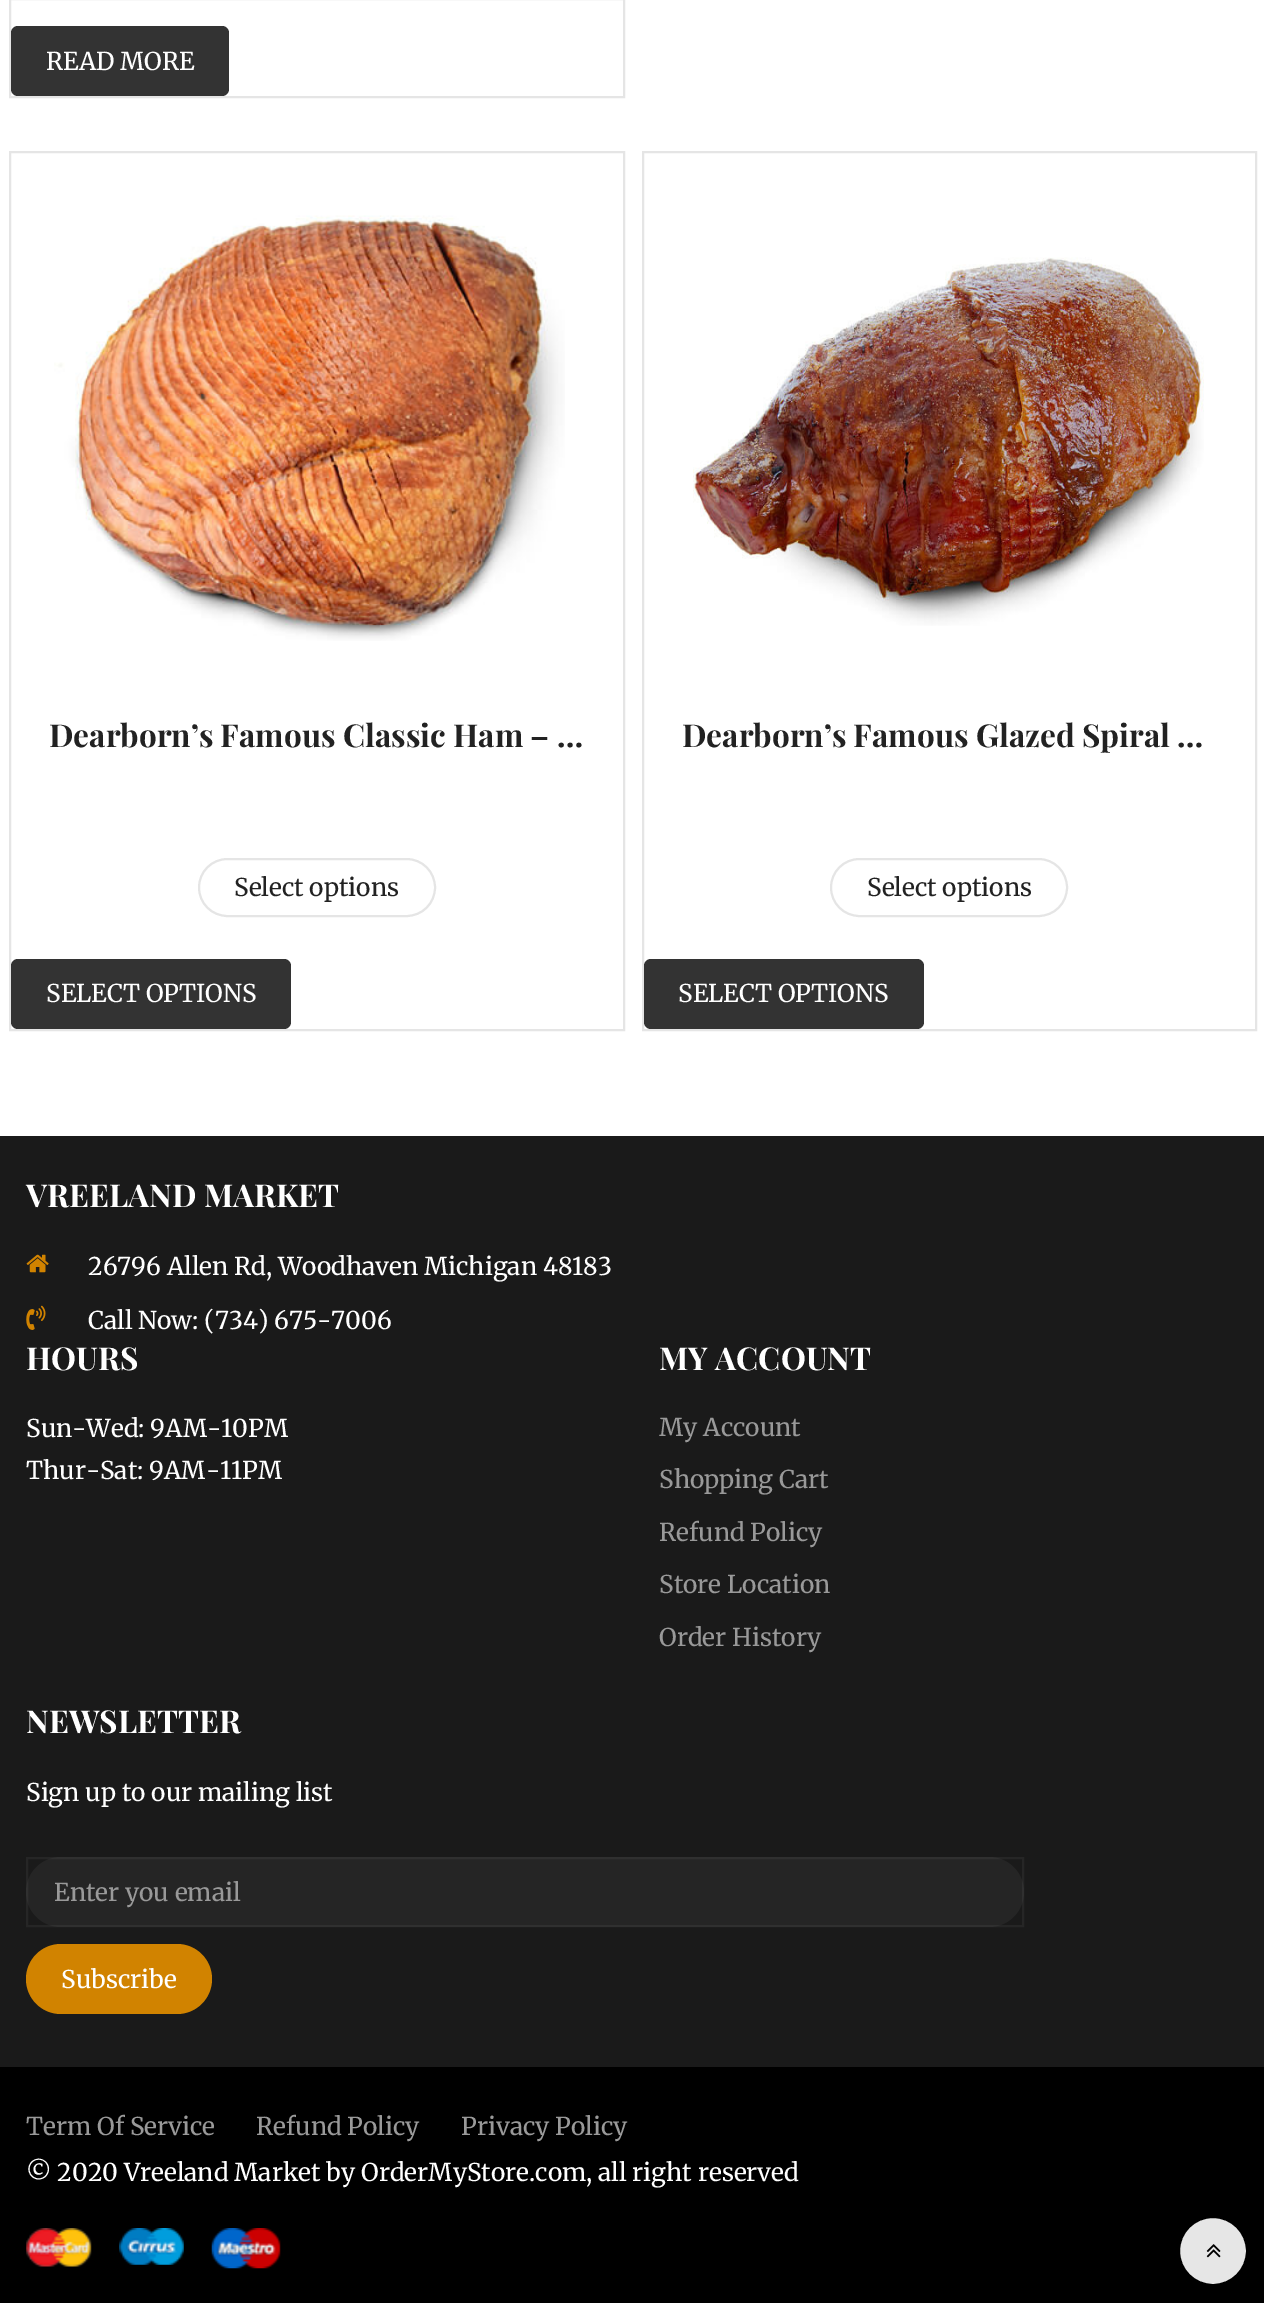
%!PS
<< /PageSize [1264 2303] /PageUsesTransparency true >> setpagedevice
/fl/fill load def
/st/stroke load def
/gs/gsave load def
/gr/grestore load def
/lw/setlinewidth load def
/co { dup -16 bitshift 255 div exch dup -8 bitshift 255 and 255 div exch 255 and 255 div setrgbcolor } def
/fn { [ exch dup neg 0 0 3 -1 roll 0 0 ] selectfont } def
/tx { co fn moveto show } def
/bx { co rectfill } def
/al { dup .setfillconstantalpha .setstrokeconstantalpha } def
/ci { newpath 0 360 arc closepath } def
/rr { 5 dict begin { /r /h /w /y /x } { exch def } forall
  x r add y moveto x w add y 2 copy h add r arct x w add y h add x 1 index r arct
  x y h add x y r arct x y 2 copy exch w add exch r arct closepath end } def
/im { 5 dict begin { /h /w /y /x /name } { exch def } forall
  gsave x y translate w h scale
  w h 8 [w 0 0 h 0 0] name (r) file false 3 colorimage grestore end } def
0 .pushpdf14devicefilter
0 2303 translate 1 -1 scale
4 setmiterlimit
0 0 1264 2303 16#FFFFFF bx
16#E5E5E5 co
2 lw
10 -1 614 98 rectstroke
16#333333 co
11 26 218 70 7 rr fl
16#E5E5E5 co
10 152 614 878 rectstroke
(media/1.raw) 54 215 511 426 im
199 859 236 57 28.5 rr st
16#333333 co
11 959 280 70 7 rr fl
16#E5E5E5 co
643 152 613 878 rectstroke
(media/2.raw) 693 257 511 369 im
831 859 236 57 28.5 rr st
16#333333 co
644 959 280 70 7 rr fl
0 1136 1264 931 16#1A1A1A bx
(media/3.raw) 26 1254 23 19 im
(media/4.raw) 26 1305 20 25 im
16#252525 co
26 1857 998 70 35 rr fl
0.05 al
16#FFFFFF co
27 1858 996 68 rectstroke
1 al
16#D18300 co
26 1944 186 70 35 rr fl
0 2067 1264 236 16#000000 bx
(media/5.raw) 26 2228 66 39 im
(media/6.raw) 119 2228 65 37 im
(media/7.raw) 211 2228 70 41 im
16#E6E6E6 co
1213 2251 34 ci gs fl gr
16#000000 co
st
(media/8.raw) 1206 2244 15 14 im
(READ MORE) 46 70 /Merriweather-Regular 24.5 16#FFFFFF tx
(Dearborn’s Famous Classic Ham – …) 49 747 /PlayfairDisplay-Bold 31.5 16#222222 tx
(Select options) 234 896 /Merriweather-Regular 24.5 16#222222 tx
(SELECT OPTIONS) 46 1002 /Merriweather-Regular 24.5 16#FFFFFF tx
gs
683 719 533 44 rectclip
(Dearborn’s Famous Glazed Spiral …) 682 747 /PlayfairDisplay-Bold 31.5 16#222222 tx
gr
(Select options) 867 896 /Merriweather-Regular 24.5 16#222222 tx
(SELECT OPTIONS) 678 1002 /Merriweather-Regular 24.5 16#FFFFFF tx
(VREELAND MARKET) 26 1207 /PlayfairDisplay-Bold 31.5 16#FFFFFF tx
(26796 Allen Rd, Woodhaven Michigan 48183) 88 1275 /Merriweather-Regular 24.5 16#FFFFFF tx
(Call Now: \(734\) 675-7006) 88 1329 /Merriweather-Regular 24.5 16#FFFFFF tx
(HOURS) 26 1370 /PlayfairDisplay-Bold 31.5 16#FFFFFF tx
(Sun-Wed: 9AM-10PM) 26 1437 /Merriweather-Regular 24.5 16#FFFFFF tx
(Thur-Sat: 9AM-11PM) 26 1479 /Merriweather-Regular 24.5 16#FFFFFF tx
(MY ACCOUNT) 659 1370 /PlayfairDisplay-Bold 31.5 16#FFFFFF tx
(My Account) 659 1436 /Merriweather-Regular 24.5 16#999999 tx
(Shopping Cart) 659 1488 /Merriweather-Regular 24.5 16#999999 tx
(Refund Policy) 659 1541 /Merriweather-Regular 24.5 16#999999 tx
(Store Location) 659 1593 /Merriweather-Regular 24.5 16#999999 tx
(Order History) 659 1646 /Merriweather-Regular 24.5 16#999999 tx
(NEWSLETTER) 26 1733 /PlayfairDisplay-Bold 31.5 16#FFFFFF tx
(Sign up to our mailing list) 26 1801 /Merriweather-Regular 24.5 16#FFFFFF tx
(Enter you email) 54 1901 /Merriweather-Regular 24.5 16#999999 tx
(Subscribe) 61 1988 /Merriweather-Regular 24.5 16#FFFFFF tx
(Term Of Service) 26 2135 /Merriweather-Regular 24.5 16#999999 tx
(Refund Policy) 256 2135 /Merriweather-Regular 24.5 16#999999 tx
(Privacy Policy) 461 2135 /Merriweather-Regular 24.5 16#999999 tx
(© 2020 Vreeland Market by OrderMyStore.com, all right reserved) 26 2181 /Merriweather-Regular 24.5 16#FFFFFF tx
.poppdf14devicefilter showpage
